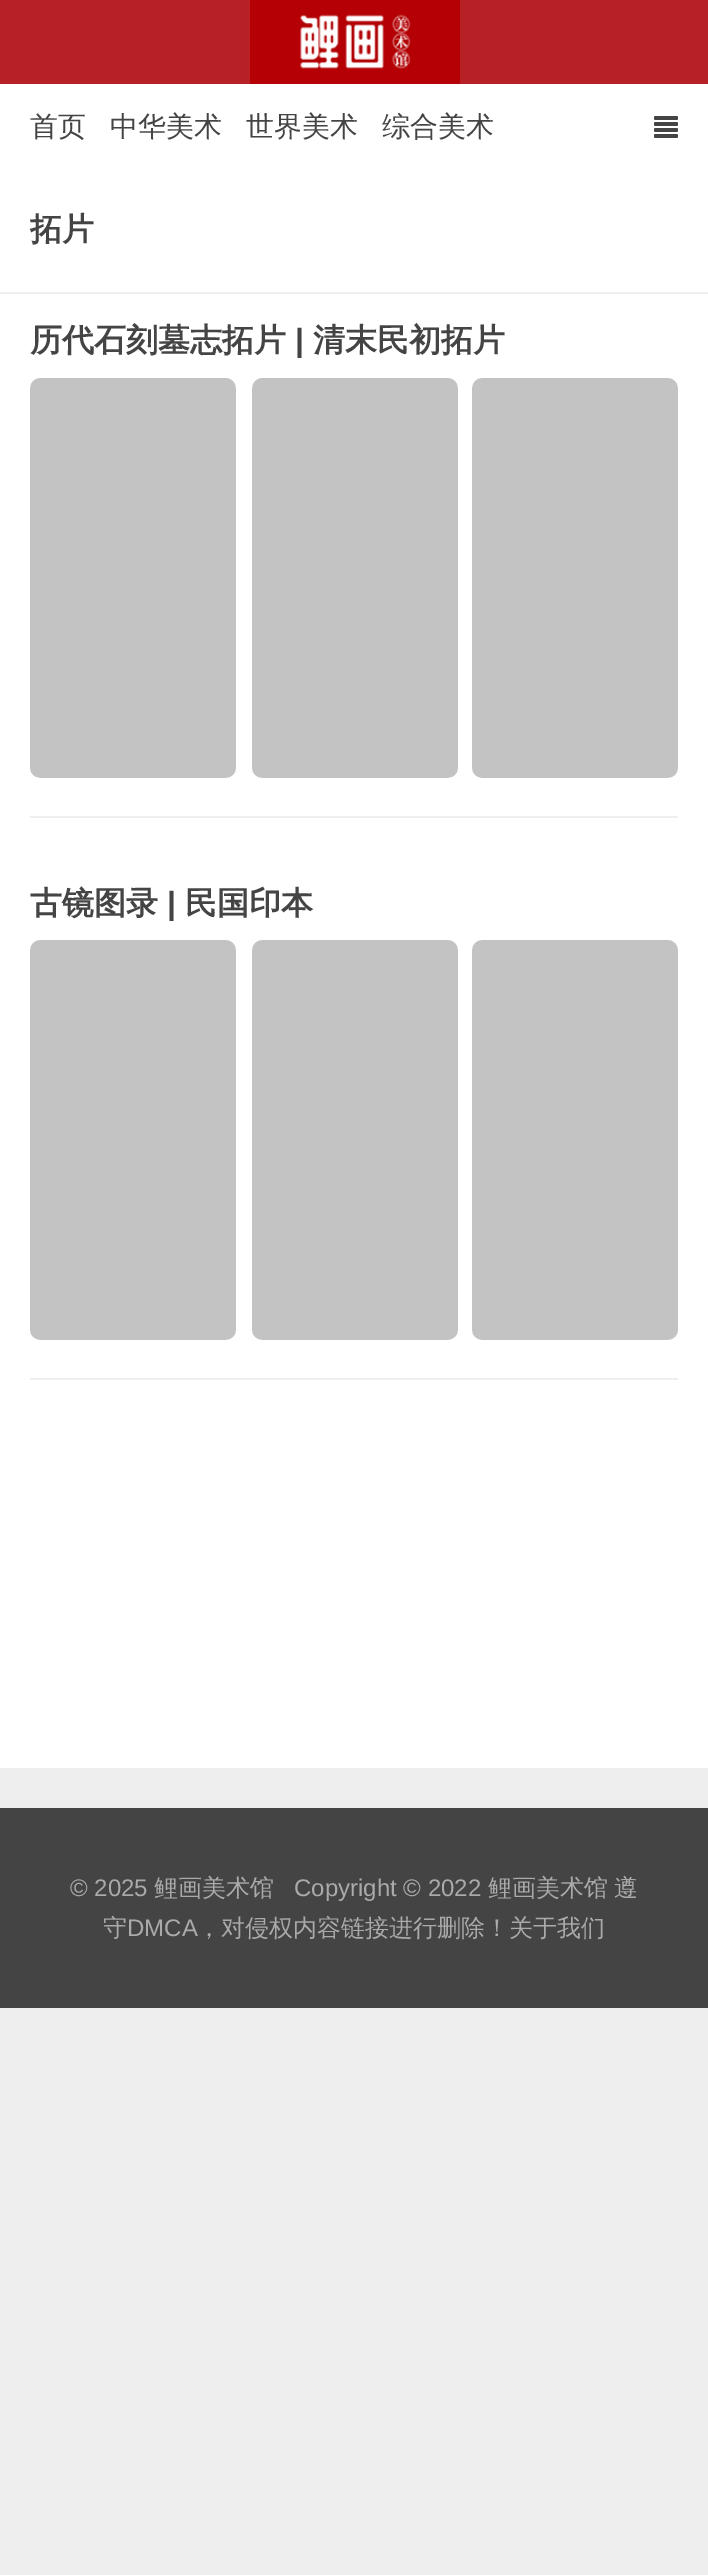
%!PS
<< /PageSize [708 2575] >> setpagedevice
/co { dup -16 bitshift 255 div exch dup -8 bitshift 255 and 255 div exch 255 and 255 div setrgbcolor } def
/fn { [ exch dup neg 0 0 3 -1 roll 0 0 ] selectfont } def
/tx { co fn moveto show } def
/bx { co rectfill } def
/im { 5 dict begin { /h /w /y /x /name } { exch def } forall
  gsave x y translate w h scale
  w h 8 [w 0 0 h 0 0] name (r) file false 3 colorimage grestore end } def
0 2575 translate 1 -1 scale
4 setmiterlimit
0 0 708 2575 16#EEEEEE bx
0 0 708 84 16#B72025 bx
(media/1.raw) 250 0 210 84 im
0 84 708 1684 16#FFFFFF bx
(media/2.raw) 654 116 24 22 im
0 292 708 2 16#EEEEEE bx
30 816 648 2 16#EEEEEE bx
(media/3.raw) 30 378 206 400 im
(media/4.raw) 252 378 206 400 im
(media/3.raw) 472 378 206 400 im
30 1378 648 2 16#EEEEEE bx
(media/3.raw) 30 940 206 400 im
(media/4.raw) 252 940 206 400 im
(media/3.raw) 472 940 206 400 im
0 1808 708 200 16#444444 bx
(首页) 30 136 /WenQuanYiZenHei-Medium 28 16#444444 tx
(中华美术) 110 136 /WenQuanYiZenHei-Medium 28 16#444444 tx
(世界美术) 246 136 /WenQuanYiZenHei-Medium 28 16#444444 tx
(综合美术) 382 136 /WenQuanYiZenHei-Medium 28 16#444444 tx
(拓片) 30 240 /WenQuanYiZenHei-Bold 32 16#444444 tx
(历代石刻墓志拓片) 30 351 /WenQuanYiZenHei-Bold 32 16#444444 tx
(|) 295 351 /LiberationSans-Bold 32 16#444444 tx
(清末民初拓片) 313 351 /WenQuanYiZenHei-Bold 32 16#444444 tx
(古镜图录) 30 914 /WenQuanYiZenHei-Bold 32 16#444444 tx
(|) 167 914 /LiberationSans-Bold 32 16#444444 tx
(民国印本) 185 914 /WenQuanYiZenHei-Bold 32 16#444444 tx
(© 2025) 70 1896 /LiberationSans-Regular 24 16#AAAAAA tx
(鲤画美术馆) 154 1896 /WenQuanYiZenHei-Medium 24 16#AAAAAA tx
(Copyright © 2022) 294 1896 /LiberationSans-Regular 24 16#AAAAAA tx
(鲤画美术馆) 488 1896 /WenQuanYiZenHei-Medium 24 16#AAAAAA tx
(遵) 614 1896 /WenQuanYiZenHei-Medium 24 16#AAAAAA tx
(守) 103 1936 /WenQuanYiZenHei-Medium 24 16#AAAAAA tx
(DMCA) 127 1936 /LiberationSans-Regular 24 16#AAAAAA tx
(，对侵权内容链接进行删除！关于我们) 197 1936 /WenQuanYiZenHei-Medium 24 16#AAAAAA tx
showpage
